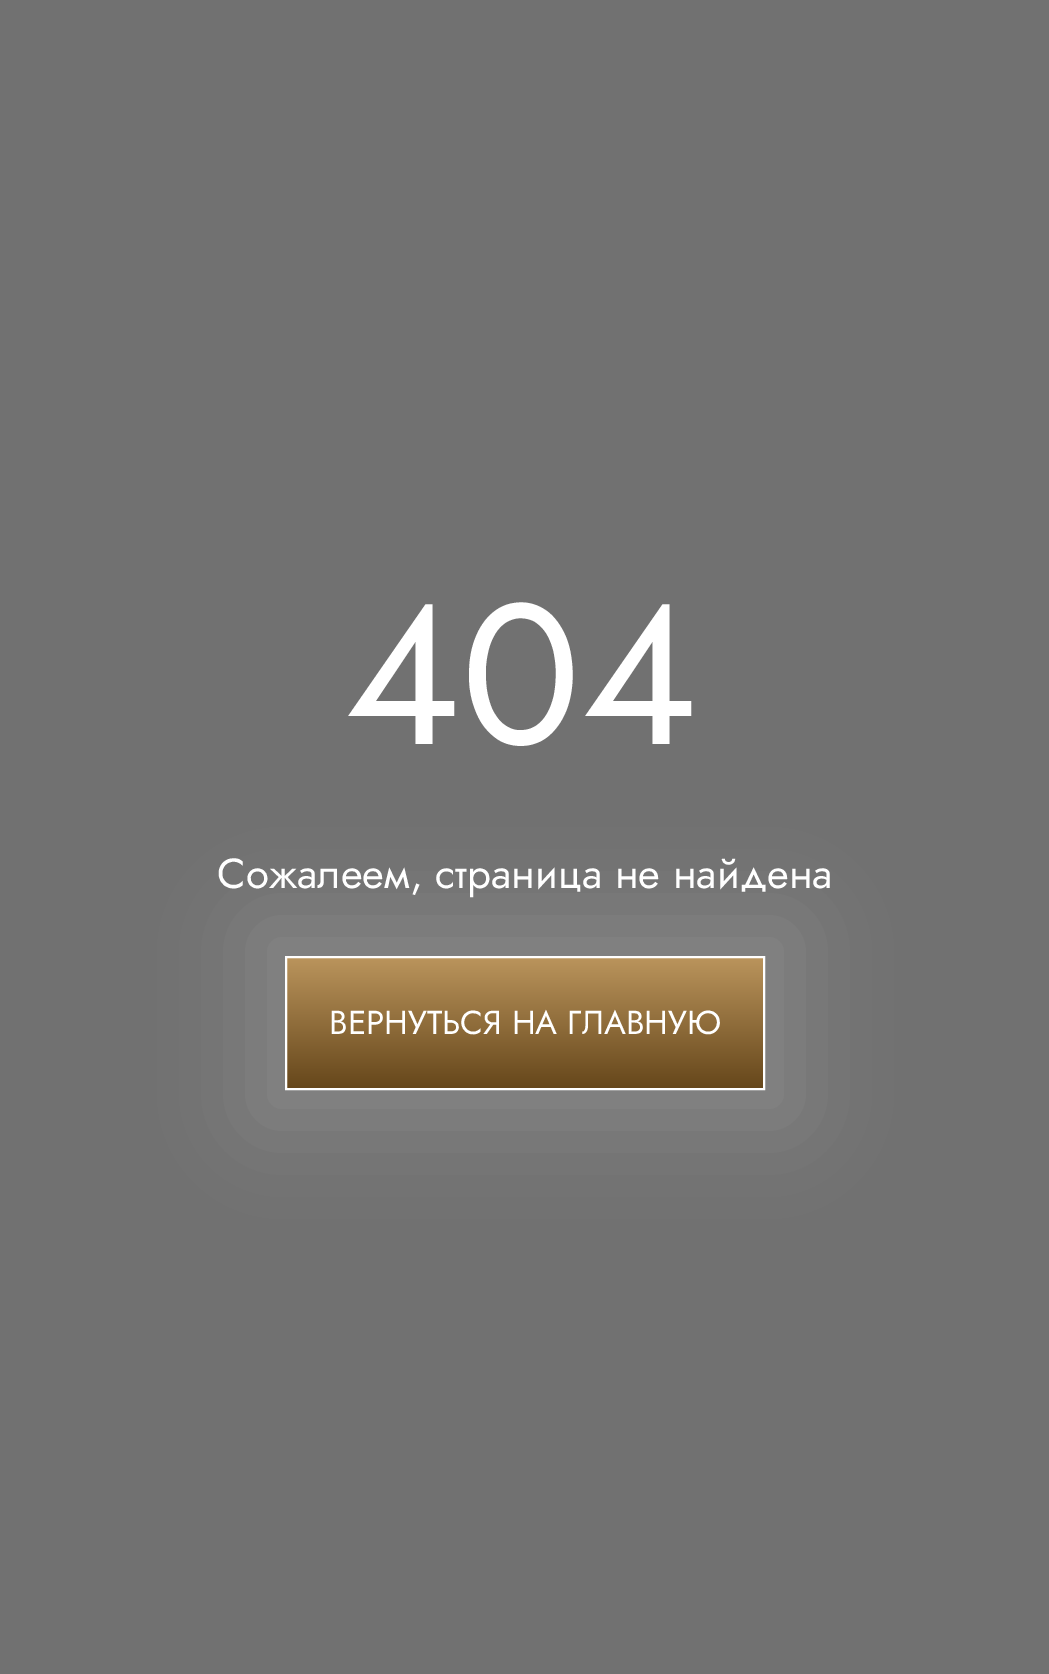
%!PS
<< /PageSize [1049 1674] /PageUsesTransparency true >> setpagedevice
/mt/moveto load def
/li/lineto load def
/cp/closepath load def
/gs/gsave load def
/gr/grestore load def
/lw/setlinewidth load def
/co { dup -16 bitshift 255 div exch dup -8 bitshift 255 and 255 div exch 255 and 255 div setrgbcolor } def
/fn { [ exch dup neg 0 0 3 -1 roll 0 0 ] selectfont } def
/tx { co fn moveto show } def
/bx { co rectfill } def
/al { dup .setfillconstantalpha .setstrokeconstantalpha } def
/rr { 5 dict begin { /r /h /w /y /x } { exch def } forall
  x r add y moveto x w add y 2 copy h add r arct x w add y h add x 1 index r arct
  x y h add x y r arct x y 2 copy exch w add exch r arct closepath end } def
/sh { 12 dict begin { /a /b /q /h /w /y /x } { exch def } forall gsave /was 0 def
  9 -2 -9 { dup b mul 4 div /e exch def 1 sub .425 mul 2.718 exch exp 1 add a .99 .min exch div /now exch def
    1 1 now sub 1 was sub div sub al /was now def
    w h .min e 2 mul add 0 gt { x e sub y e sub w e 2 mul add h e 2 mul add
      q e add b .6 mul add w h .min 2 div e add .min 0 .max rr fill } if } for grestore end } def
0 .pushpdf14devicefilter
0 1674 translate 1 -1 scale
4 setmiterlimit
0 0 1049 1674 16#717171 bx
16#FFFFFF co
256 926 539 194 0 44 .14 sh
gs 287 958 mt 763 958 li 763 1088 li 287 1088 li cp clip newpath
<< /ShadingType 2 /ColorSpace /DeviceRGB /Coords [525 957 525 1089] /Extend [true true] /Function << /FunctionType 2 /Domain [0 1] /C0 [.733 .584 .361] /C1 [.396 .278 .102] /N 1 >> >> shfill gr
2 lw
286 957 478 132 rectstroke
(404) 344 744 /Jost-Regular 200 16#FFFFFF tx
(Сожалеем, страница не найдена) 217 888 /Jost-Regular 42 16#FFFFFF tx
(ВЕРНУТЬСЯ НА ГЛАВНУЮ) 329 1034 /Jost-Regular 33.25 16#FFFFFF tx
.poppdf14devicefilter showpage
